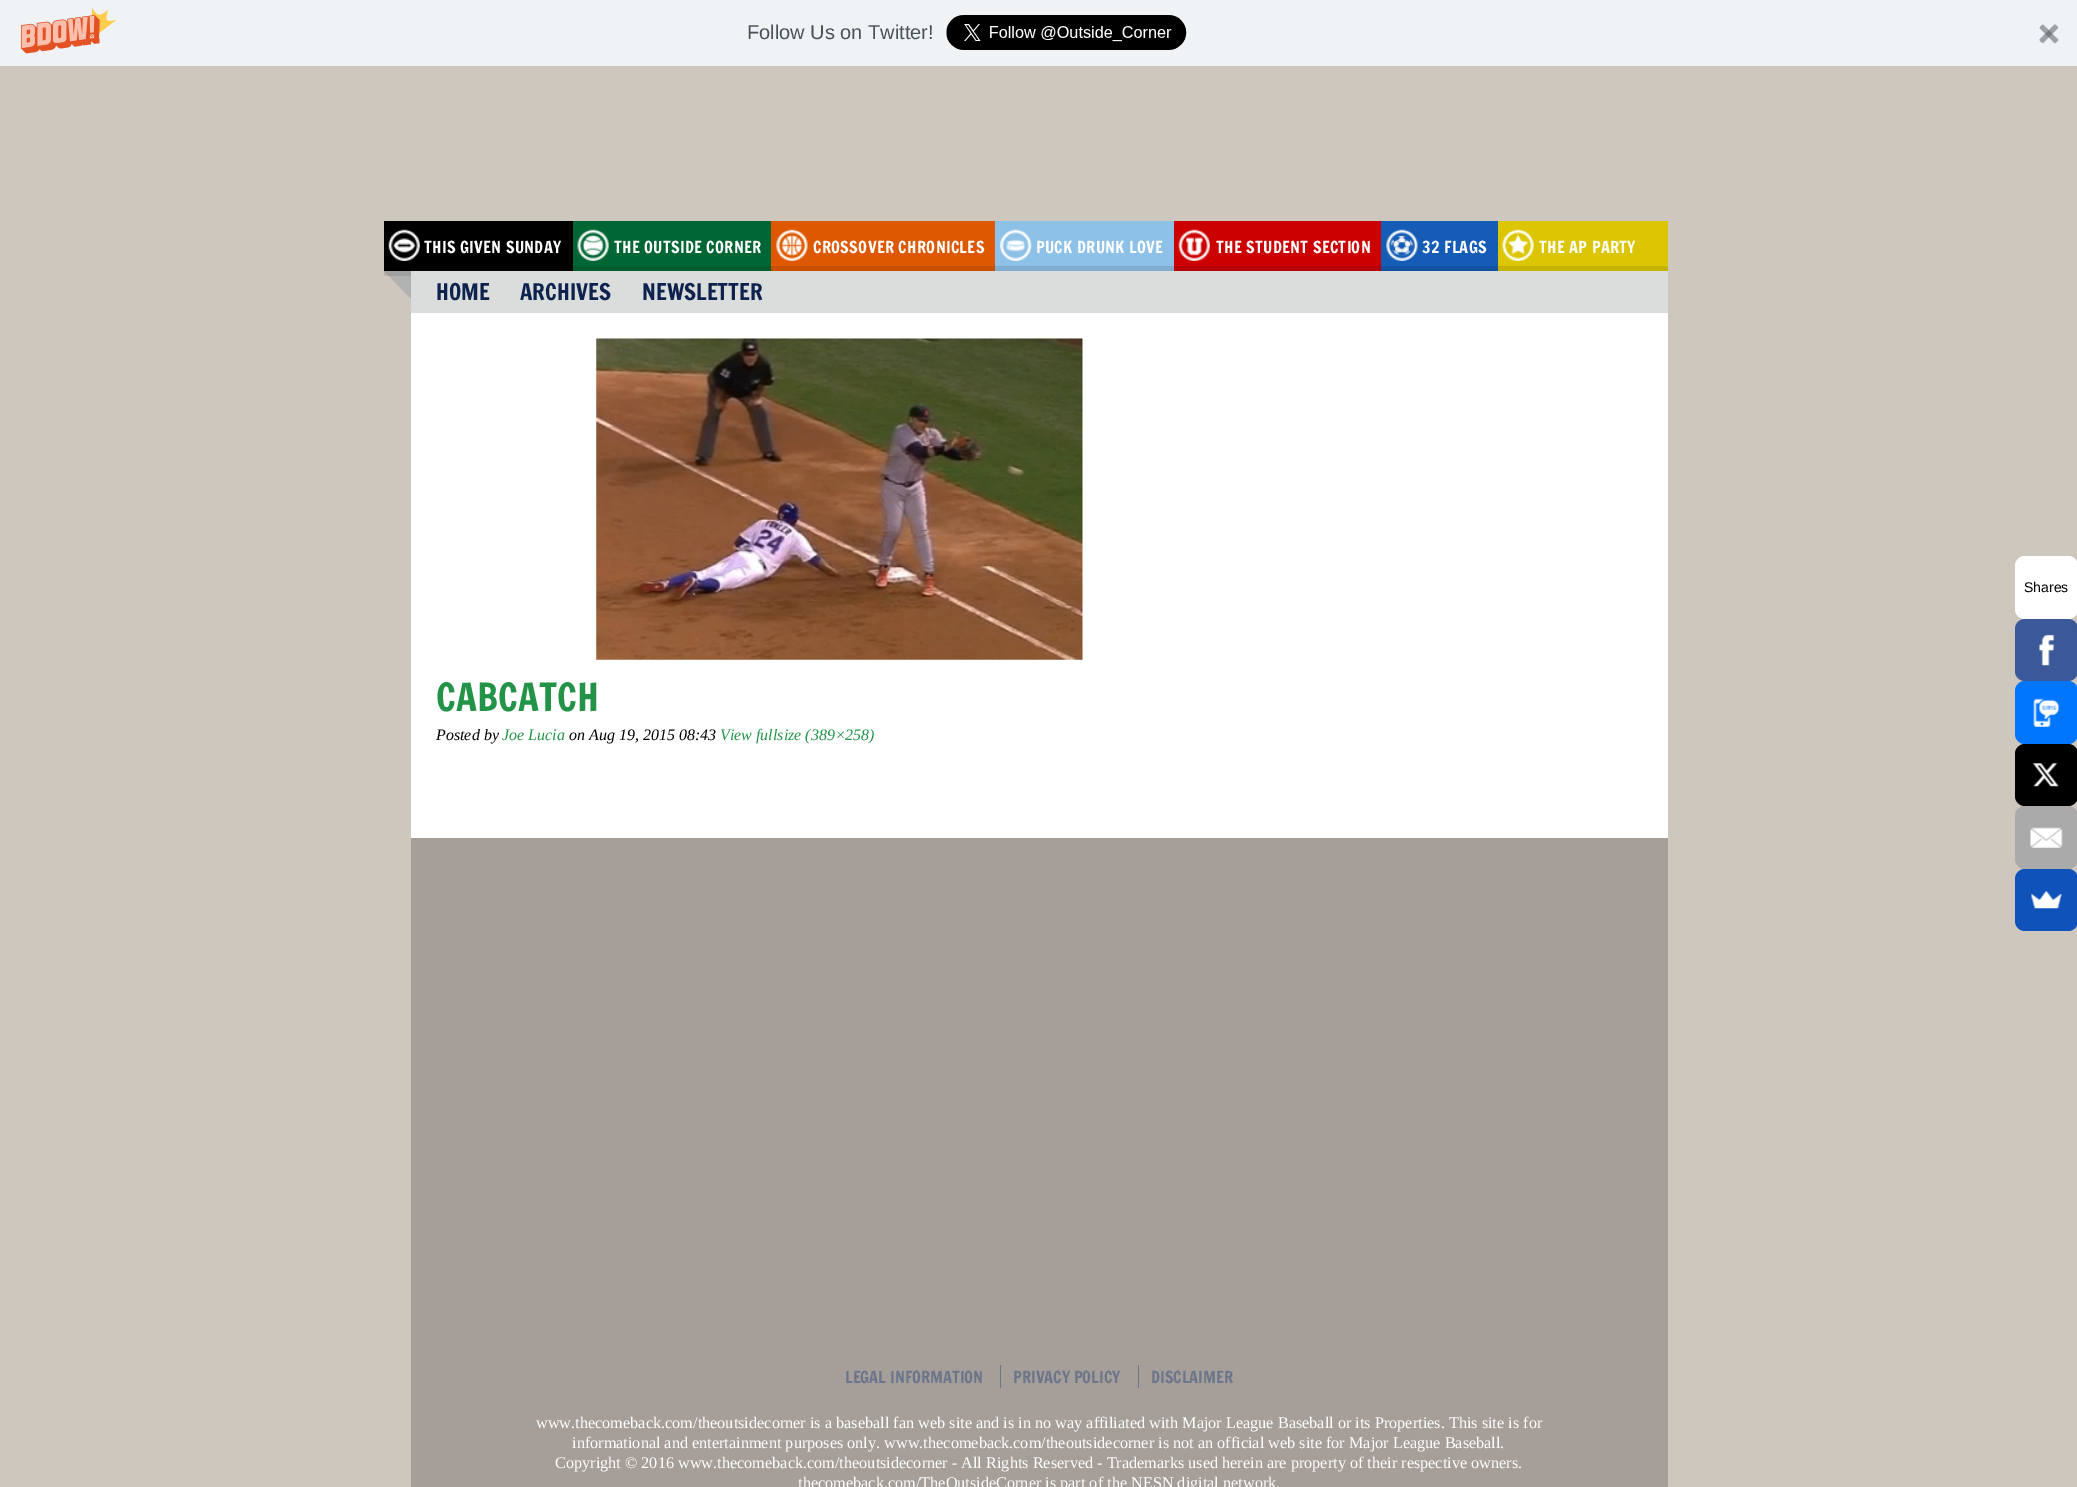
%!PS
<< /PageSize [2077 1487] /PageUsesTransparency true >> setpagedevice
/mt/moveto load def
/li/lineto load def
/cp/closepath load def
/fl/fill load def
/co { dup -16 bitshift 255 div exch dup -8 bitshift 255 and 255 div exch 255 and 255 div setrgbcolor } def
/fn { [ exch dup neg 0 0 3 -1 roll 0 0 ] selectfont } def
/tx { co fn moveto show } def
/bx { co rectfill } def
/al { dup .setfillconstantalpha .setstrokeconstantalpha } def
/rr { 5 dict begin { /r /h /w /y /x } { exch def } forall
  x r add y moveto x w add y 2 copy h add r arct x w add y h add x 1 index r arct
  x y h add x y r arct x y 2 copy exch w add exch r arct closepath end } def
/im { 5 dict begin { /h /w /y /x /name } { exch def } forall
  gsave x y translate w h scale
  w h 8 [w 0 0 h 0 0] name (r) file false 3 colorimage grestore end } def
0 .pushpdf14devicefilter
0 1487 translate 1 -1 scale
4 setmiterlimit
0 0 2077 1487 16#CEC7BE bx
0 0 2077 66 16#F0F3F5 bx
(media/1.raw) 20 7 97 47 im
(media/2.raw) 946 15 241 35 im
(media/3.raw) 2039 24 20 20 im
411 313 1257 525 16#FFFFFF bx
1498 221 170 50 16#DCC604 bx
384 221 189 50 16#000000 bx
(media/4.raw) 388 229 32 32 im
573 221 198 50 16#006633 bx
(media/5.raw) 577 229 32 32 im
771 221 224 50 16#DD5800 bx
(media/6.raw) 776 229 32 32 im
995 221 179 50 16#8EC1E8 bx
(media/7.raw) 1000 229 32 32 im
1174 221 207 50 16#CC0000 bx
(media/8.raw) 1178 229 32 32 im
1381 221 117 50 16#145CB6 bx
(media/9.raw) 1386 229 32 32 im
(media/10.raw) 1502 229 32 32 im
16#B1B1B1 co
384 271 mt 411 271 li 397.5 285 li cp fl
411 271 mt 411 299 li 397.5 285 li cp fl
0.1 al
384 266 1284 10 16#000000 bx
1 al
411 271 1257 42 16#DBDDDD bx
(media/11.raw) 596 337 487 323 im
411 838 1257 649 16#A69F99 bx
1000 1365 1 23 16#6B758B bx
1138 1365 1 23 16#6B758B bx
16#FFFFFF co
2015 556 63 63 10 rr fl
16#3B5998 co
2015 619 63 62 10 rr fl
(media/12.raw) 2039 634 16 32 im
16#0076FF co
2015 681 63 63 10 rr fl
(media/13.raw) 2033 698 27 29 im
16#000000 co
2015 744 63 62 10 rr fl
(media/14.raw) 2032 763 27 24 im
16#AAAAAA co
2015 806 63 63 10 rr fl
(media/15.raw) 2030 827 33 21 im
16#0F52BA co
2015 869 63 62 10 rr fl
(media/16.raw) 2031 891 31 18 im
(Follow Us on Twitter!) 747 39 /LiberationSans-Regular 20 16#495259 tx
/FrancoisOne-Regular 16.25 fn
16#FEFEFE co
424 253 mt .3 0 (THIS GIVEN SUNDAY) ashow
614 253 mt .3 0 (THE OUTSIDE CORNER) ashow
813 253 mt .3 0 (CROSSOVER CHRONICLES) ashow
1036 253 mt .3 0 (PUCK DRUNK LOVE) ashow
1216 253 mt .3 0 (THE STUDENT SECTION) ashow
1422 253 mt .3 0 (32 FLAGS) ashow
1539 253 mt .3 0 (THE AP PARTY) ashow
(HOME) 436 300 /FrancoisOne-Regular 22.5 16#0D234D tx
(ARCHIVES) 520 300 /FrancoisOne-Regular 22.5 16#0D234D tx
(NEWSLETTER) 642 300 /FrancoisOne-Regular 22.5 16#0D234D tx
(CABCATCH) 436 711 /FrancoisOne-Regular 38 16#229347 tx
(Posted by) 436 740 /LiberationSerif-Italic 16 16#000000 tx
(Joe Lucia) 502 740 /LiberationSerif-Italic 16 16#229347 tx
(on Aug 19, 2015 08:43) 569 740 /LiberationSerif-Italic 16 16#000000 tx
(View fullsize \(389×258\)) 720 740 /LiberationSerif-Italic 16 16#229347 tx
(LEGAL INFORMATION) 845 1383 /FrancoisOne-Regular 16.25 16#6B758B tx
(PRIVACY POLICY) 1013 1383 /FrancoisOne-Regular 16.25 16#6B758B tx
(DISCLAIMER) 1151 1383 /FrancoisOne-Regular 16.25 16#6B758B tx
(www.thecomeback.com/theoutsidecorner is a baseball fan web site and is in no way affiliated with Major League Baseball or its Properties. This site is for) 536 1428 /LiberationSerif-Regular 16.25 16#FEFEFE tx
(informational and entertainment purposes only. www.thecomeback.com/theoutsidecorner is not an official web site for Major League Baseball.) 572 1448 /LiberationSerif-Regular 16.25 16#FEFEFE tx
(Copyright © 2016 www.thecomeback.com/theoutsidecorner - All Rights Reserved - Trademarks used herein are property of their respective owners.) 555 1468 /LiberationSerif-Regular 16.25 16#FEFEFE tx
(thecomeback.com/TheOutsideCorner is part of the NESN digital network.) 798 1488 /LiberationSerif-Regular 16.25 16#FEFEFE tx
(Shares) 2024 592 /LiberationSans-Regular 14 16#000000 tx
.poppdf14devicefilter showpage
